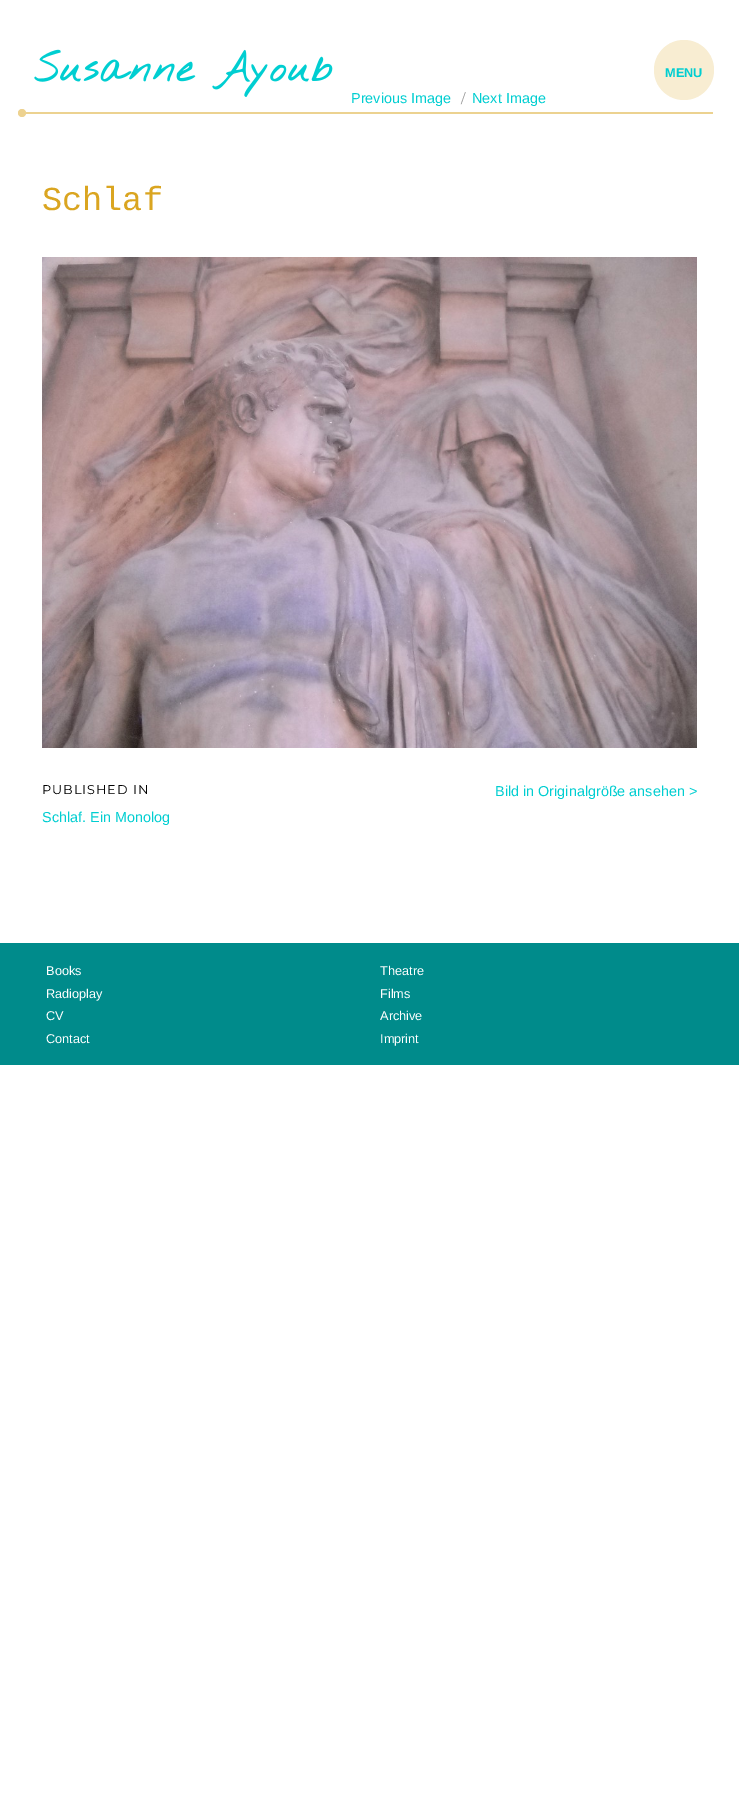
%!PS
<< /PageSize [739 1816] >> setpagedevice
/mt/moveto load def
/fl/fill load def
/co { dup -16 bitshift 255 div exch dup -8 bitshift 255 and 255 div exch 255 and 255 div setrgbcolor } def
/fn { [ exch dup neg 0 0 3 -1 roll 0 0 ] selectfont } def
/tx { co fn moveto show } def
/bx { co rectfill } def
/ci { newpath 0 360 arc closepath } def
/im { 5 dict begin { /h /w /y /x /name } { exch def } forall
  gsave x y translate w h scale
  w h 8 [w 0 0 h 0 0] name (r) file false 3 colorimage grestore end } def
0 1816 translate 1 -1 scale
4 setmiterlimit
0 0 739 1816 16#FFFFFF bx
(media/1.raw) 34 49 299 48 im
16#F8EDD2 co
684 70 30 ci fl
26 112 687 2 16#ECD290 bx
16#EDD290 co
22 113 4 ci fl
(media/2.raw) 42 257 655 491 im
0 943 739 122 16#008B8B bx
(MENU) 665 77 /LiberationSans-Bold 12.75 16#00CED1 tx
(Previous Image) 351 103 /LiberationSans-Regular 14.4 16#00CED1 tx
(/) 461 103 /Montserrat-Thin 13 16#959595 tx
(Next Image) 472 103 /LiberationSans-Regular 14.4 16#00CED1 tx
(Schlaf) 42 210 /LiberationMono-Regular 33.5 16#DAA520 tx
/Montserrat-Thin 12.75 fn
16#000000 co
42 794 mt 1 0 (PUBLISHED IN) ashow
(Schlaf. Ein Monolog) 42 822 /LiberationSans-Regular 14.4 16#00CED1 tx
(Bild in Originalgröße ansehen >) 495 796 /LiberationSans-Regular 14.4 16#00CED1 tx
(Books) 46 975 /LiberationSans-Regular 12.75 16#FFFFFF tx
(Theatre) 380 975 /LiberationSans-Regular 12.75 16#FFFFFF tx
(Radioplay) 46 998 /LiberationSans-Regular 12.75 16#FFFFFF tx
(Films) 380 998 /LiberationSans-Regular 12.75 16#FFFFFF tx
(CV) 46 1020 /LiberationSans-Regular 12.75 16#FFFFFF tx
(Archive) 380 1020 /LiberationSans-Regular 12.75 16#FFFFFF tx
(Contact) 46 1043 /LiberationSans-Regular 12.75 16#FFFFFF tx
(Imprint) 380 1043 /LiberationSans-Regular 12.75 16#FFFFFF tx
showpage
